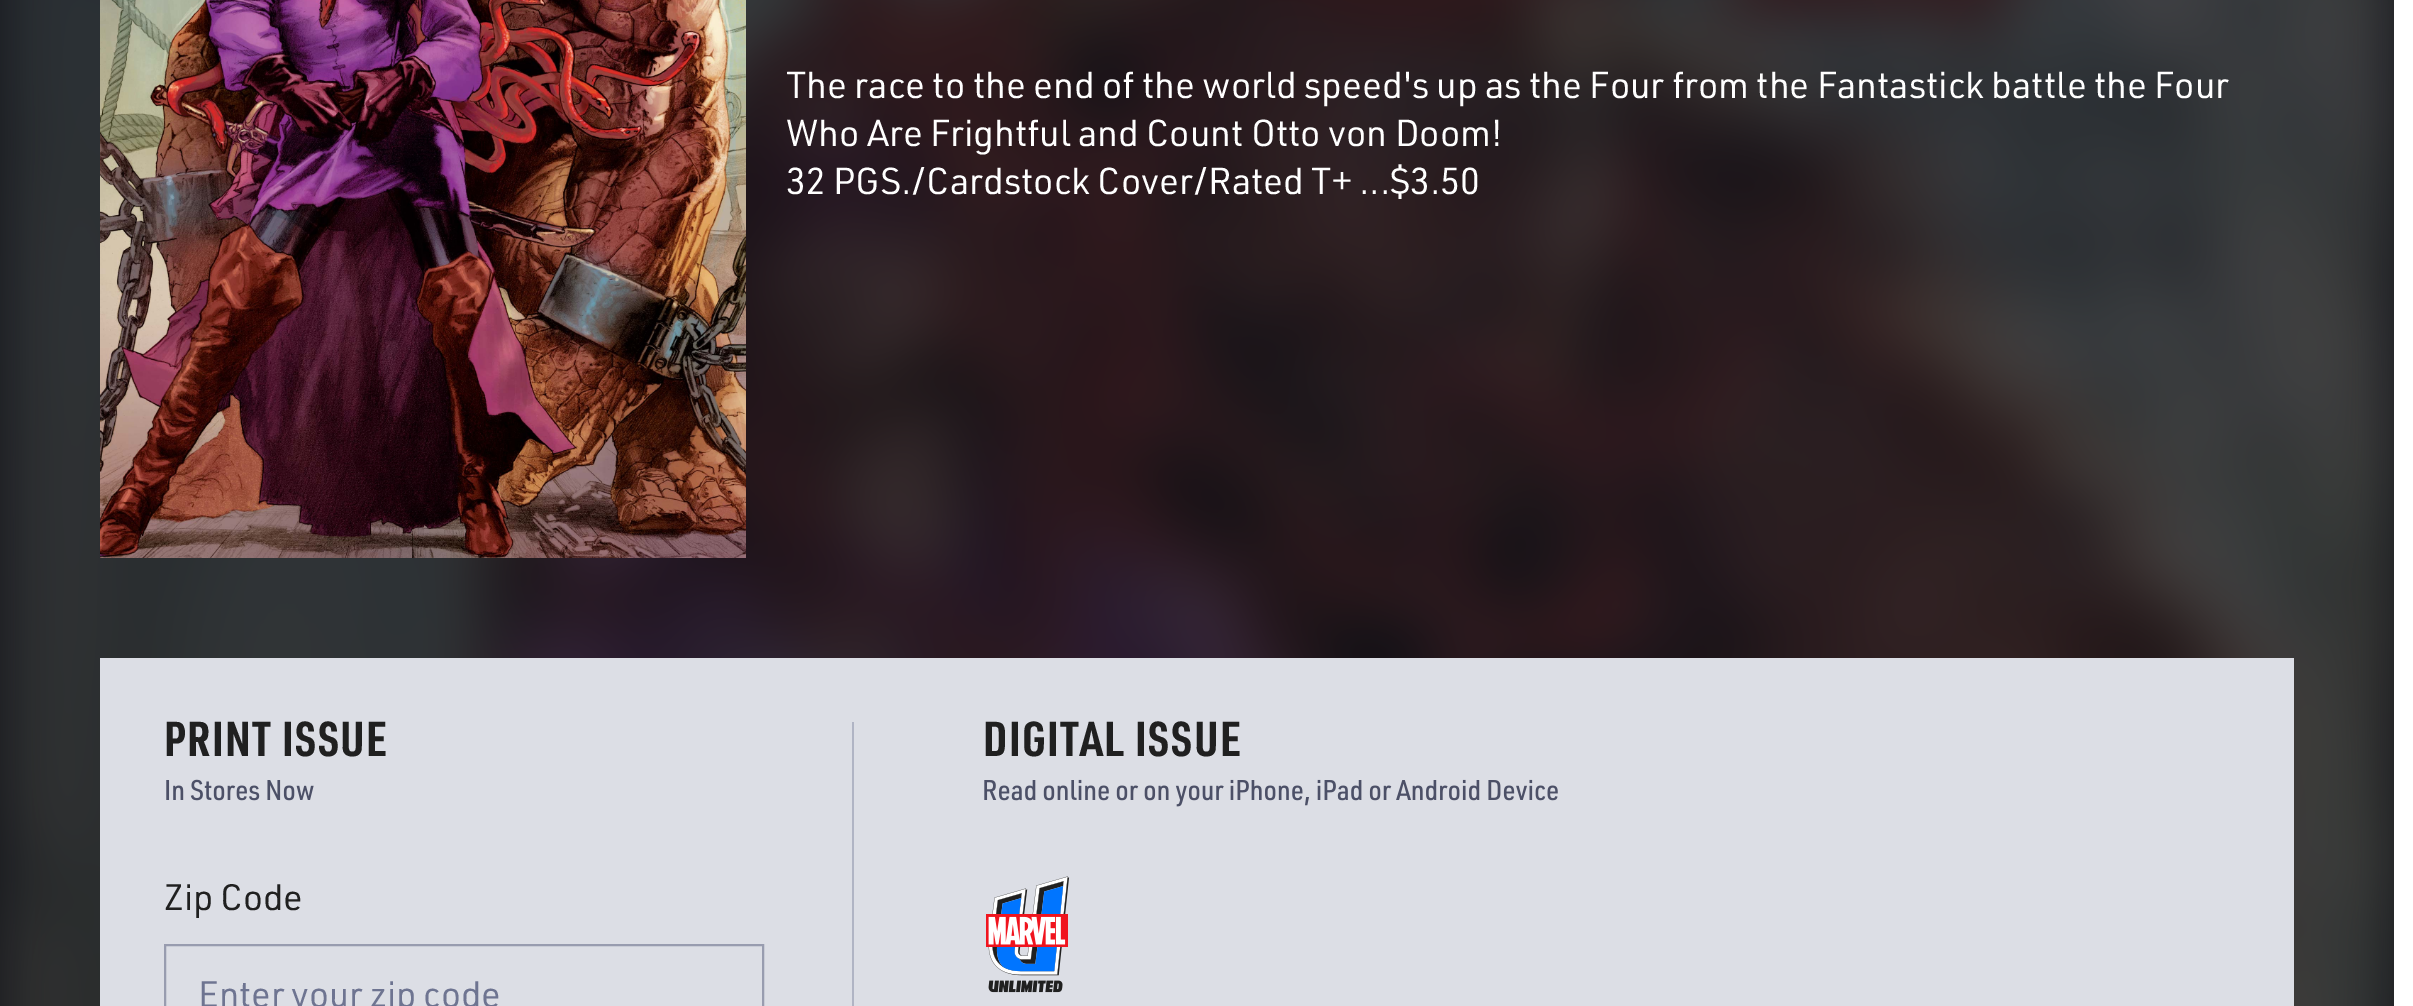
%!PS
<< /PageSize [2413 1006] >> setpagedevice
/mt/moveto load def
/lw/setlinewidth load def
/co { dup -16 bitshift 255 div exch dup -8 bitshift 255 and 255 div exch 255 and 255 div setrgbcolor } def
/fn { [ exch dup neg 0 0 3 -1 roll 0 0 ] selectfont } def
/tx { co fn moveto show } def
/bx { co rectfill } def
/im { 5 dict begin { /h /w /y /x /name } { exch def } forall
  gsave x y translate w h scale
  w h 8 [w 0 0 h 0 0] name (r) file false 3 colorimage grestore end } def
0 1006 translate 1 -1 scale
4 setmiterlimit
0 0 2413 1006 16#FFFFFF bx
0 0 2394 1006 16#13141A bx
(media/1.raw) 0 0 2394 1006 im
(media/2.raw) 100 0 646 558 im
100 658 2194 348 16#DCDEE5 bx
(media/3.raw) 166 779 148 22 im
16#989CAF co
2 lw
165 945 598 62 rectstroke
852 722 2 284 16#B0B4C4 bx
(media/4.raw) 984 779 574 28 im
(media/5.raw) 986 876 84 117 im
(The race to the end of the world speed's up as the Four from the Fantastick battle the Four) 786 98 /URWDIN-Regular 36.8 16#FFFFFF tx
(Who Are Frightful and Count Otto von Doom!) 786 146 /URWDIN-Regular 36.8 16#FFFFFF tx
(32 PGS./Cardstock Cover/Rated T+ ...$3.50) 786 194 /URWDIN-Regular 36.8 16#FFFFFF tx
/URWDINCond-Bold 48 fn
16#202020 co
164 756 mt 1.5 0 (PRINT ISSUE) ashow
(Zip Code) 164 910 /URWDIN-Regular 36 16#202020 tx
(Enter your zip code) 198 1007 /URWDIN-Regular 36 16#6E7491 tx
/URWDINCond-Bold 48 fn
16#202020 co
983 756 mt 1.5 0 (DIGITAL ISSUE) ashow
showpage
